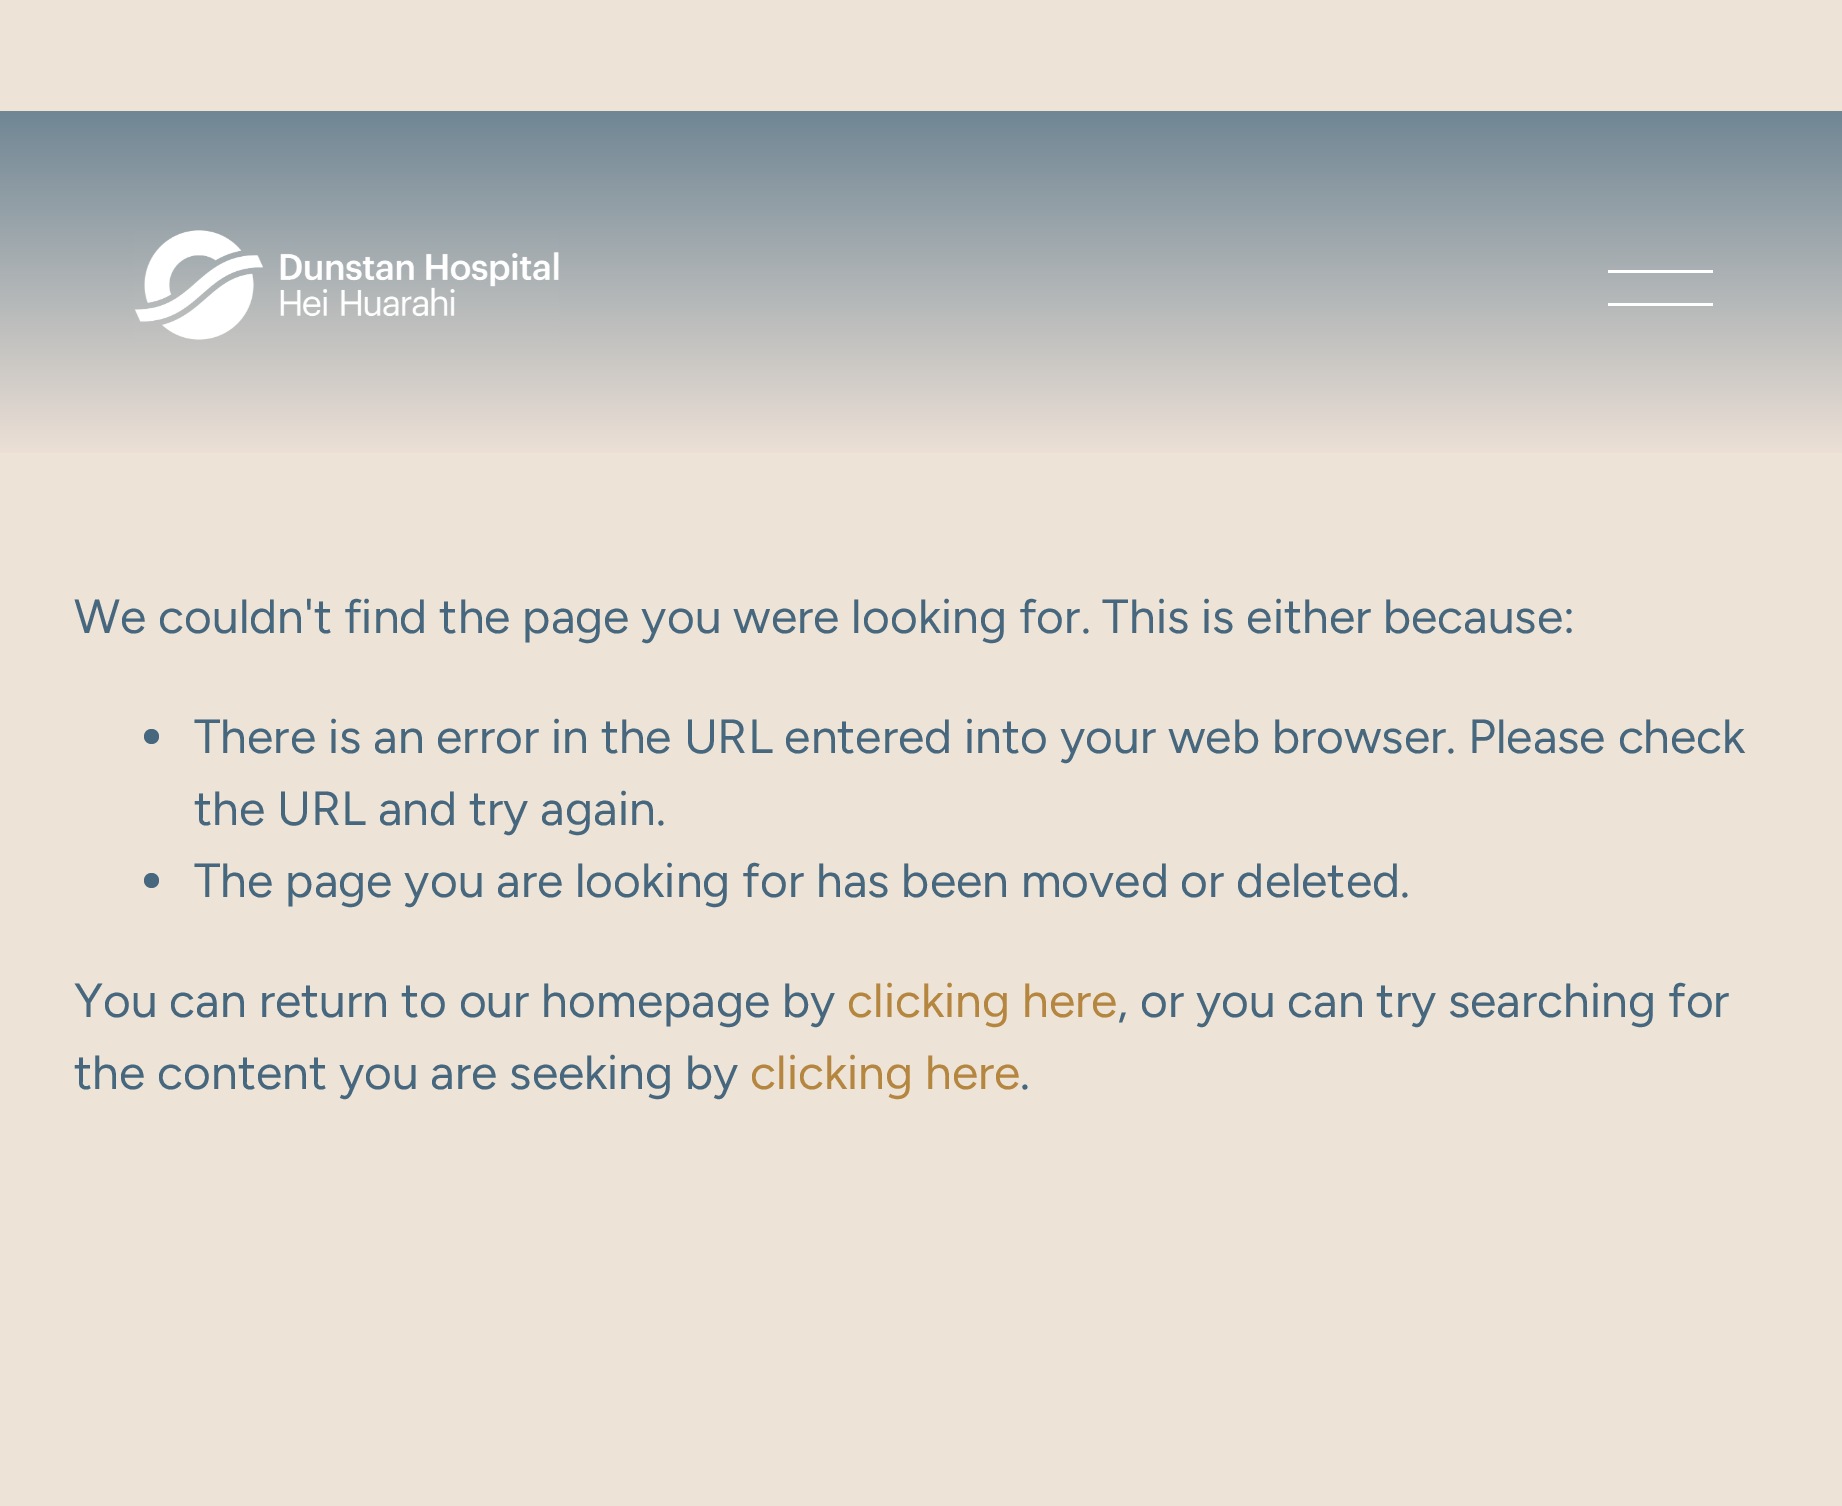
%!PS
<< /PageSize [1842 1506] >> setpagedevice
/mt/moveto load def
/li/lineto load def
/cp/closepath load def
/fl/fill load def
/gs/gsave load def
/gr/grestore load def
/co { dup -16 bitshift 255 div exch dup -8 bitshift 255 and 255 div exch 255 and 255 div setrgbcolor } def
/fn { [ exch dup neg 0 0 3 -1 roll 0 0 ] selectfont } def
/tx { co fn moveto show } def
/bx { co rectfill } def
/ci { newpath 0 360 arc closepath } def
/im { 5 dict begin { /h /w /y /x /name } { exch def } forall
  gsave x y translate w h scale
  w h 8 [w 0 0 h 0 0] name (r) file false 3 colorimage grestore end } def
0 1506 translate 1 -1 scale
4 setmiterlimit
0 0 1842 1506 16#EDE3D6 bx
gs 0 111 mt 1842 111 li 1842 453 li 0 453 li cp clip newpath
<< /ShadingType 2 /ColorSpace /DeviceRGB /Coords [921 111 921 459] /Extend [true true] /Function << /FunctionType 2 /Domain [0 1] /C0 [.439 .525 .58] /C1 [.933 .886 .843] /N 1 >> >> shfill gr
(media/1.raw) 134 230 425 110 im
1608 270 105 3 16#FFFFFF bx
1608 303 105 3 16#FFFFFF bx
16#46677D co
151.5 736.5 7.5 ci fl
151.5 880.5 7.5 ci fl
(We couldn't find the page you were looking for. This is either because:) 74 633 /Figtree-Regular 48 16#46677D tx
(There is an error in the URL entered into your web browser. Please check) 194 753 /Figtree-Regular 48 16#46677D tx
(the URL and try again.) 194 825 /Figtree-Regular 48 16#46677D tx
(The page you are looking for has been moved or deleted.) 194 897 /Figtree-Regular 48 16#46677D tx
(You can return to our homepage by) 74 1017 /Figtree-Regular 48 16#46677D tx
(clicking here) 847 1017 /Figtree-Regular 48 16#B5863F tx
(, or you can try searching for) 1117 1017 /Figtree-Regular 48 16#46677D tx
(the content you are seeking by) 74 1089 /Figtree-Regular 48 16#46677D tx
(clicking here) 750 1089 /Figtree-Regular 48 16#B5863F tx
(.) 1020 1089 /Figtree-Regular 48 16#46677D tx
showpage
